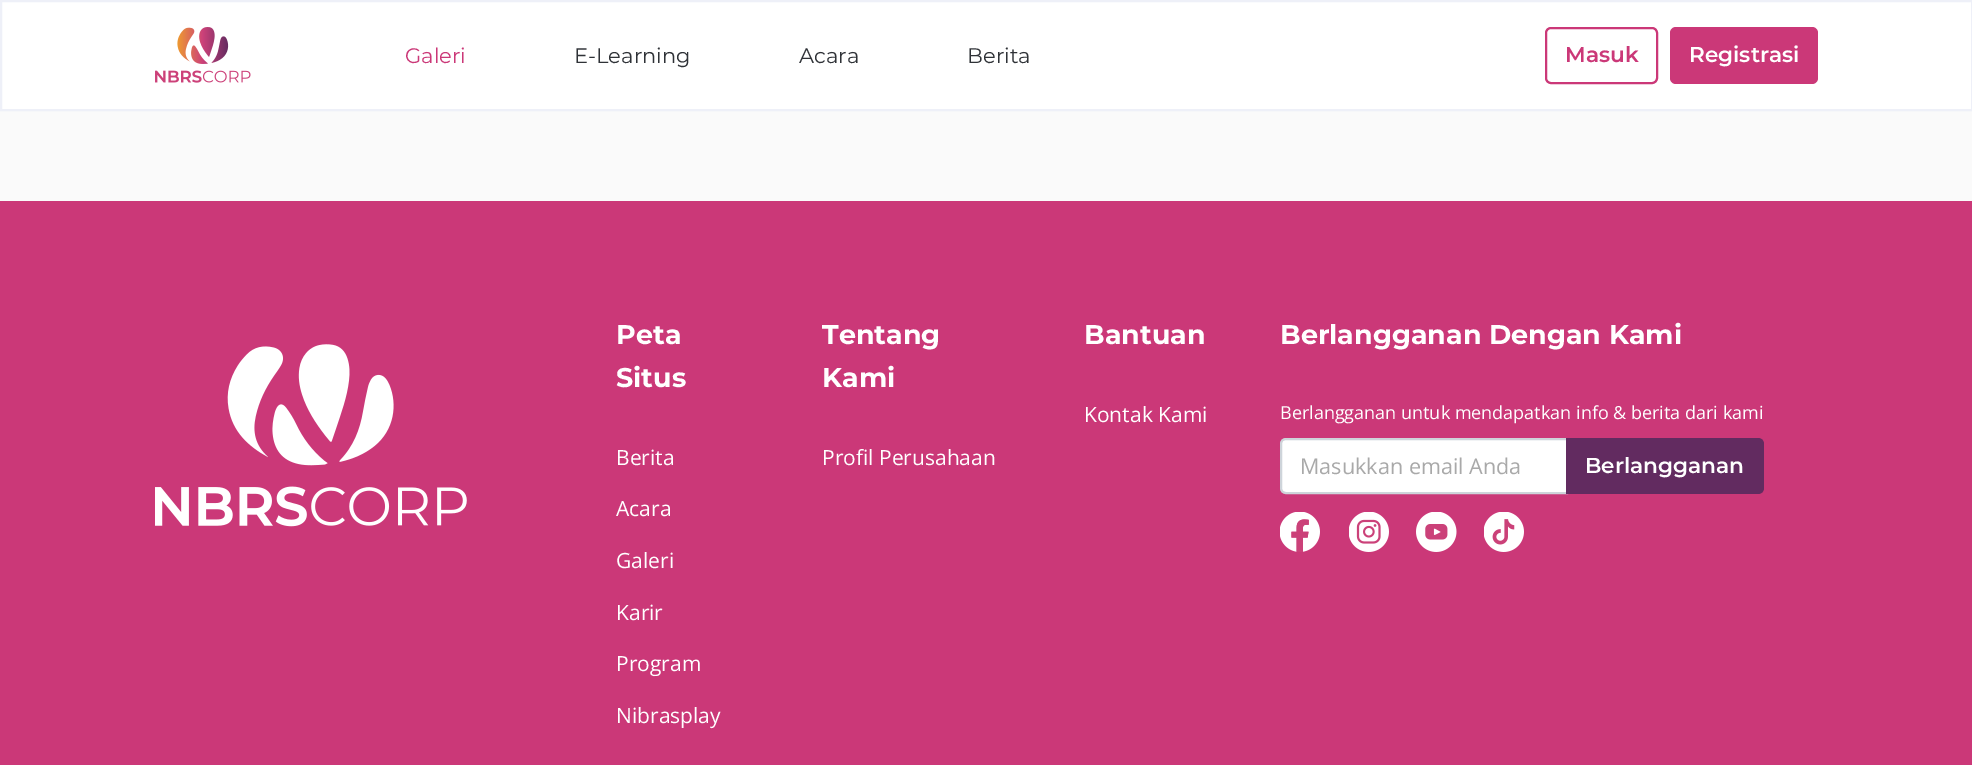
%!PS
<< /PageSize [1972 765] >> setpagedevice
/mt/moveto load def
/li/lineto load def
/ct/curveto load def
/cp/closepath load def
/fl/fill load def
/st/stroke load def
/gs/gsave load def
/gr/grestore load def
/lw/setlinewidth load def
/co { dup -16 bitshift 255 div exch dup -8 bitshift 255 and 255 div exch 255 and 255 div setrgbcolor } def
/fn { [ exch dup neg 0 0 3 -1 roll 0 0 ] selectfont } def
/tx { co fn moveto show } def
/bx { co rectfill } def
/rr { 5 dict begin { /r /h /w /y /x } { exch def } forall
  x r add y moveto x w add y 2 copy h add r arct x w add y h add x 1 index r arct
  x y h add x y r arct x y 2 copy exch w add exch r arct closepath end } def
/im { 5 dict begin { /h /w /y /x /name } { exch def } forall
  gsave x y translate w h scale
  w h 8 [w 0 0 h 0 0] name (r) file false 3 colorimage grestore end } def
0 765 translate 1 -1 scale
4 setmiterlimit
0 0 1972 765 16#FAFAFA bx
16#FFFFFF co
1 1 mt 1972 1 li 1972 110 li 1 110 li cp gs fl gr
16#EEF0F8 co
2 lw
st
(media/1.raw) 155 27 96 56 im
16#CB3878 co
1546 28 111 55 5 rr st
1670 27 148 57 6 rr fl
0 201 1972 564 16#CB3878 bx
(media/2.raw) 155 344 312 183 im
16#FFFFFF co
1286 439 mt 1567 439 li 1567 493 li 1286 493 li 1283 493 1281 491 1281 488 ct 1281 444 li 1281 441 1283 439 1286 439 ct cp gs fl gr
16#CED4DA co
st
16#622B60 co
1566 438 mt 1758 438 li 1761.5 438 1764 440.5 1764 444 ct 1764 488 li 1764 491.5 1761.5 494 1758 494 ct 1566 494 li cp fl
(media/3.raw) 1280 512 40 40 im
(media/4.raw) 1349 512 40 40 im
(media/5.raw) 1416 512 41 40 im
(media/6.raw) 1484 512 40 40 im
(Galeri) 405 63 /Montserrat-Regular 21 16#CB3878 tx
(E-Learning) 574 63 /Montserrat-Regular 21 16#2F3237 tx
(Acara) 799 63 /Montserrat-Regular 21 16#2F3237 tx
(Berita) 967 63 /Montserrat-Regular 21 16#2F3237 tx
(Masuk) 1565 62 /Montserrat-SemiBold 21.6 16#CB3878 tx
(Registrasi) 1689 62 /Montserrat-SemiBold 21.6 16#FFFFFF tx
(Peta) 616 344 /Montserrat-Bold 27 16#FFFFFF tx
(Situs) 616 387 /Montserrat-Bold 27 16#FFFFFF tx
(Berita) 616 465 /OpenSans-Regular 21 16#FFFFFF tx
(Acara) 616 516 /OpenSans-Regular 21 16#FFFFFF tx
(Galeri) 616 568 /OpenSans-Regular 21 16#FFFFFF tx
(Karir) 616 620 /OpenSans-Regular 21 16#FFFFFF tx
(Program) 616 671 /OpenSans-Regular 21 16#FFFFFF tx
(Nibrasplay) 616 723 /OpenSans-Regular 21 16#FFFFFF tx
(Tentang) 822 344 /Montserrat-Bold 27 16#FFFFFF tx
(Kami) 822 387 /Montserrat-Bold 27 16#FFFFFF tx
(Profil Perusahaan) 822 465 /OpenSans-Regular 21 16#FFFFFF tx
(Bantuan) 1084 344 /Montserrat-Bold 27 16#FFFFFF tx
(Kontak Kami) 1084 422 /OpenSans-Regular 21 16#FFFFFF tx
(Berlangganan Dengan Kami) 1280 344 /Montserrat-Bold 27 16#FFFFFF tx
(Berlangganan untuk mendapatkan info & berita dari kami) 1280 419 /OpenSans-Regular 18 16#FFFFFF tx
(Masukkan email Anda) 1300 474 /OpenSans-Regular 21.6 16#A9A9A9 tx
(Berlangganan) 1585 473 /Montserrat-SemiBold 21.6 16#FFFFFF tx
showpage
